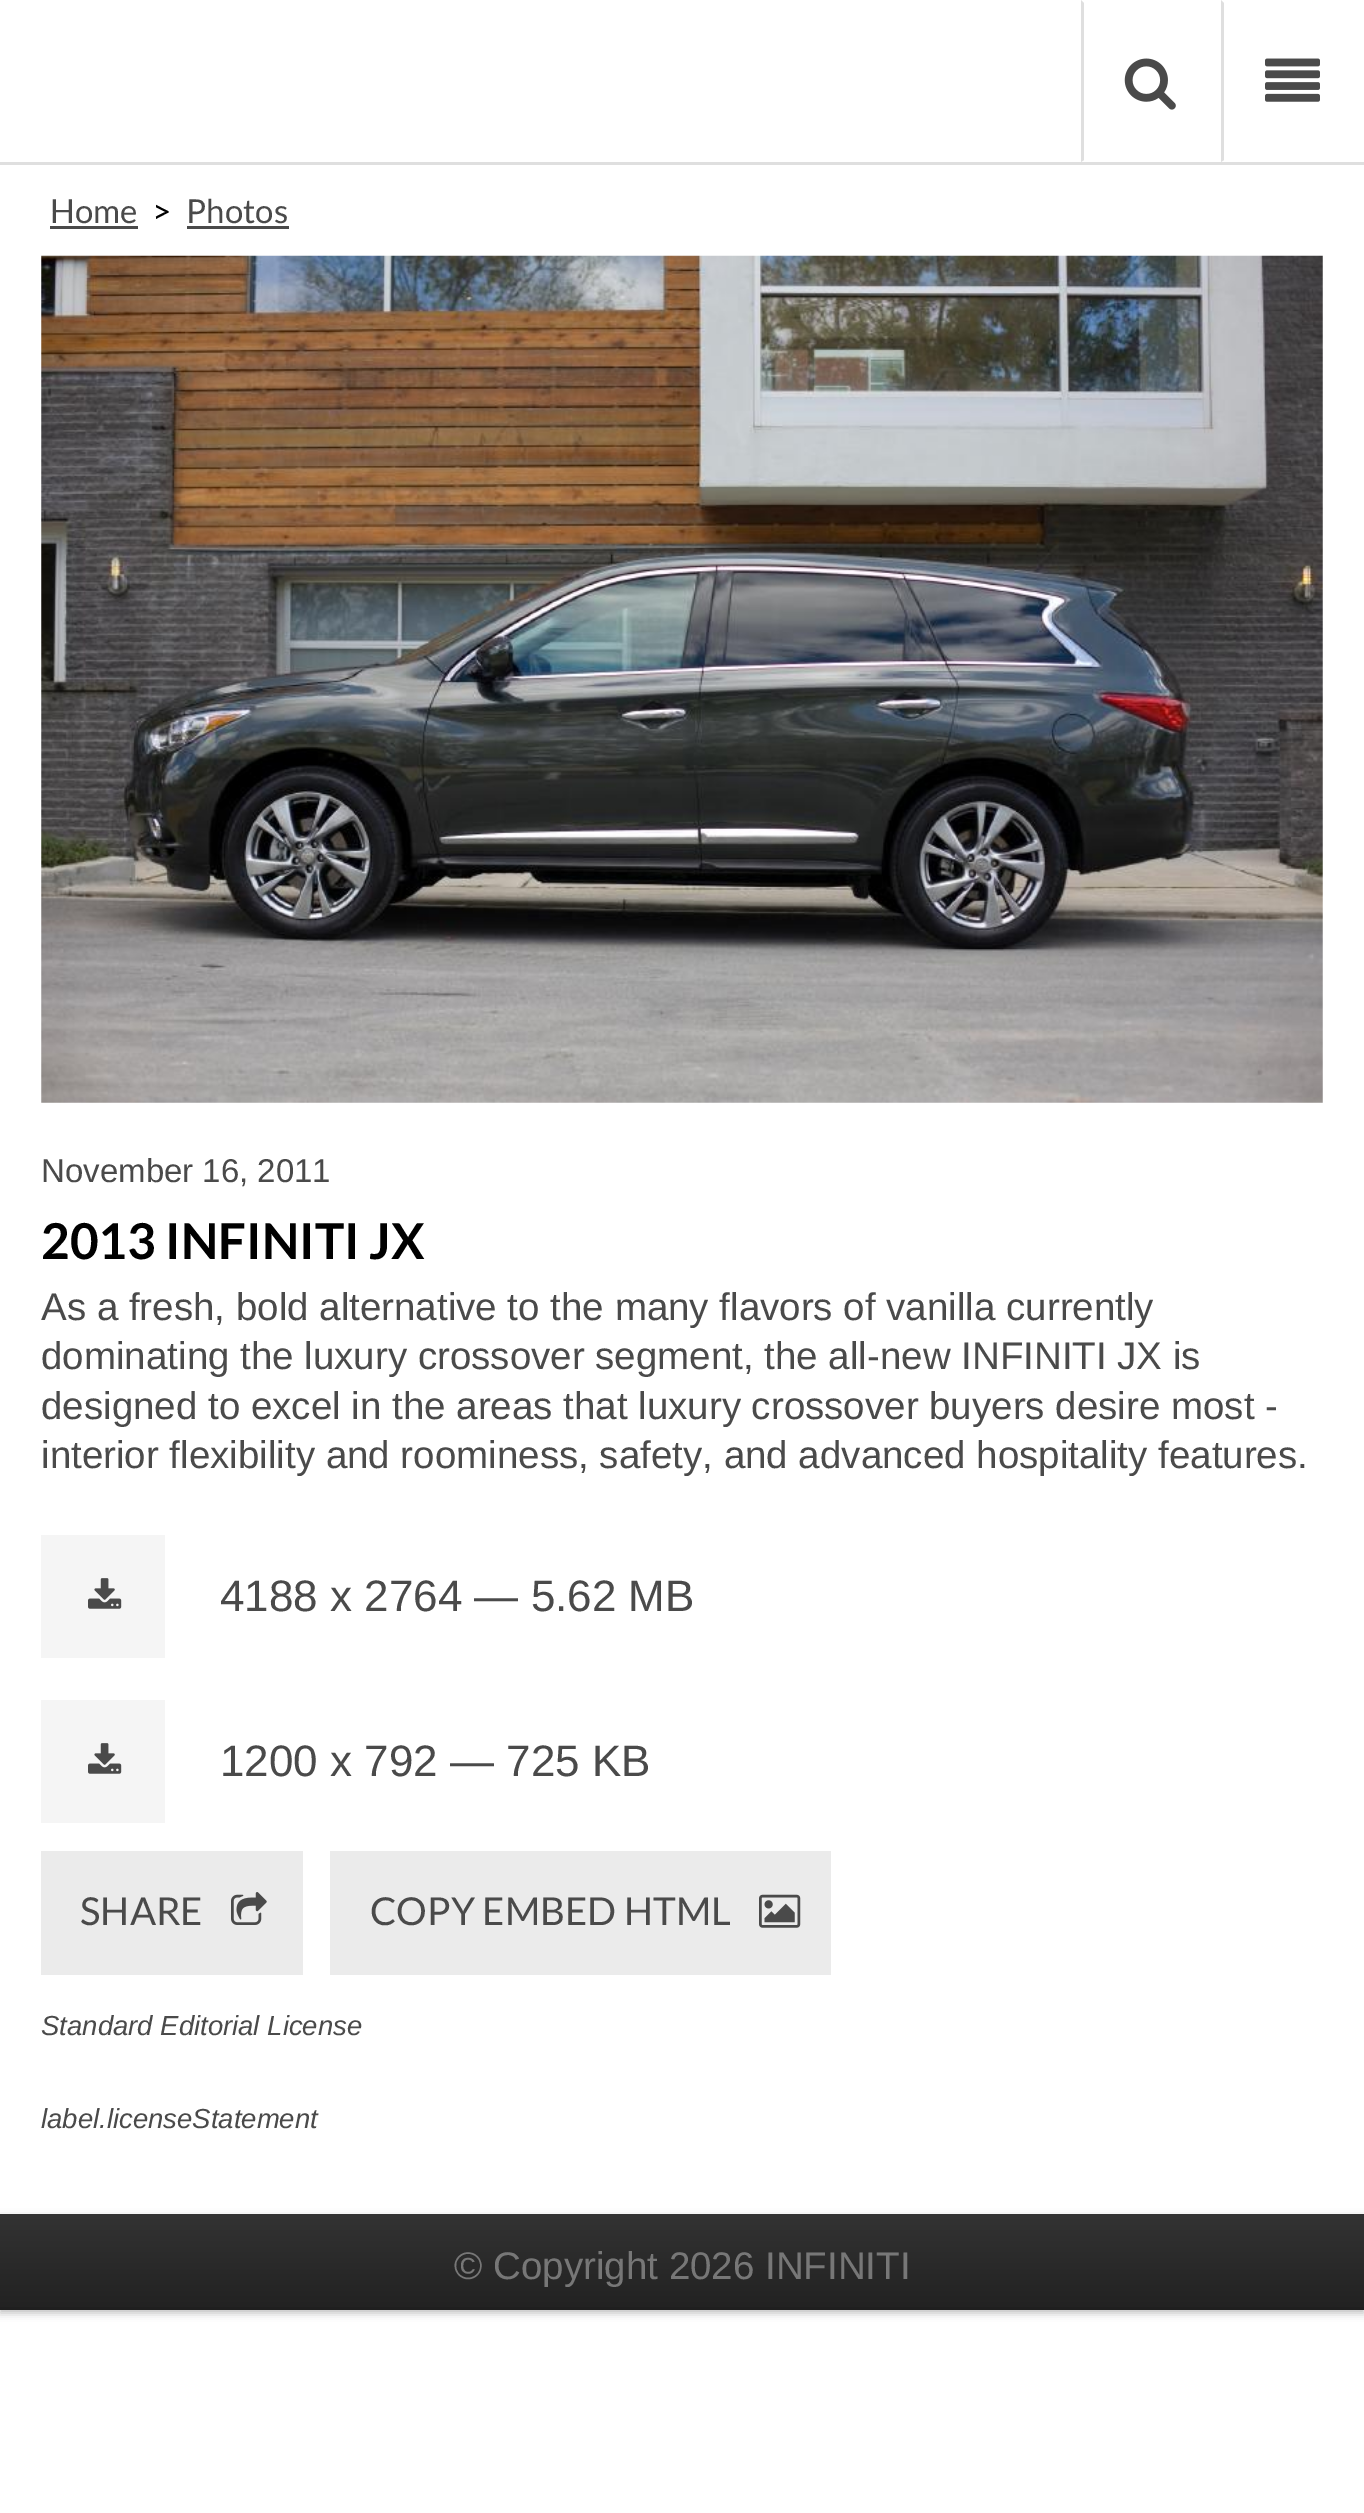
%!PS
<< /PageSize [1364 2513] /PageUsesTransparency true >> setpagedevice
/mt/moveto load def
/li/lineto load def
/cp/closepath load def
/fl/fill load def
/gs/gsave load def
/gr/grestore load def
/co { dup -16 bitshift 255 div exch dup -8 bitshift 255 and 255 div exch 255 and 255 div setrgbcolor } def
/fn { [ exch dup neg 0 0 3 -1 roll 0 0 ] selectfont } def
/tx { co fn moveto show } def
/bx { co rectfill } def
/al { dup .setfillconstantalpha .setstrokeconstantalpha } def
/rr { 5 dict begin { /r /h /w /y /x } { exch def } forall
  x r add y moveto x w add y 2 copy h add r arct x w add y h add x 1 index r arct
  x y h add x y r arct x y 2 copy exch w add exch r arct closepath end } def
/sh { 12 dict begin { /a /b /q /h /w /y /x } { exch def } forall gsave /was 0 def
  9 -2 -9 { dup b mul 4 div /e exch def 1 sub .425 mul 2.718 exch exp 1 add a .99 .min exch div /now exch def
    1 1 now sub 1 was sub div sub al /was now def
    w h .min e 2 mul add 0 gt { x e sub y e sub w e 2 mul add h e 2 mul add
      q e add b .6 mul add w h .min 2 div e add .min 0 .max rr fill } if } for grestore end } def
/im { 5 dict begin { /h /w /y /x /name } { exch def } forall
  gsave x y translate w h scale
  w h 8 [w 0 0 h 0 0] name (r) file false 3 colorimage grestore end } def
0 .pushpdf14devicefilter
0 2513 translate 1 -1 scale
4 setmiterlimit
0 0 1364 2513 16#FFFFFF bx
0 162 1364 3 16#DFDFDF bx
1081 162 mt 1081 0 li 1084 3 li 1084 160 li cp fl
(media/1.raw) 1124 58 52 52 im
1221 162 mt 1221 0 li 1224 3 li 1224 160 li cp fl
(media/2.raw) 1265 58 55 44 im
50 226 88 3 16#4A4A4A bx
187 226 102 3 16#4A4A4A bx
(media/3.raw) 41 255 1282 848 im
41 1535 124 123 16#F5F5F5 bx
(media/4.raw) 88 1578 34 31 im
41 1700 124 123 16#F5F5F5 bx
(media/4.raw) 88 1743 34 31 im
41 1851 262 124 16#EBEBEB bx
(media/5.raw) 231 1892 36 33 im
330 1851 501 124 16#EBEBEB bx
(media/6.raw) 759 1894 42 34 im
16#000000 co
0 2217 1364 96 0 4 .25 sh
gs 0 2214 mt 1364 2214 li 1364 2307 li 0 2307 li cp clip newpath
<< /ShadingType 2 /ColorSpace /DeviceRGB /Coords [682 2214 682 2310] /Extend [true true] /Function << /FunctionType 2 /Domain [0 1] /C0 [.2 .2 .2] /C1 [.133 .133 .133] /N 1 >> >> shfill gr
0 2307 1364 3 16#1F1F1F bx
(Home) 50 223 /Lato-Regular 33 16#4A4A4A tx
(>) 152 223 /Lato-Regular 33 16#000000 tx
(Photos) 186 223 /Lato-Regular 33 16#4A4A4A tx
(November 16, 2011) 41 1182 /LiberationSans-Regular 33 16#4A4A4A tx
(2013 INFINITI JX) 41 1259 /Lato-Bold 49.5 16#000000 tx
(As a fresh, bold alternative to the many flavors of vanilla currently) 41 1320 /LiberationSans-Regular 38.5 16#4A4A4A tx
(dominating the luxury crossover segment, the all-new INFINITI JX is) 41 1369 /LiberationSans-Regular 38.5 16#4A4A4A tx
(designed to excel in the areas that luxury crossover buyers desire most -) 41 1419 /LiberationSans-Regular 38.5 16#4A4A4A tx
(interior flexibility and roominess, safety, and advanced hospitality features.) 41 1468 /LiberationSans-Regular 38.5 16#4A4A4A tx
(4188 x 2764 — 5.62 MB) 220 1611 /LiberationSans-Regular 44 16#4A4A4A tx
(1200 x 792 — 725 KB) 220 1776 /LiberationSans-Regular 44 16#4A4A4A tx
(SHARE) 80 1925 /Lato-Regular 38.5 16#4A4A4A tx
(COPY EMBED HTML) 370 1925 /Lato-Regular 38.5 16#4A4A4A tx
(Standard Editorial License) 41 2035 /LiberationSans-Italic 27.5 16#4A4A4A tx
(label.licenseStatement) 41 2128 /LiberationSans-Italic 27.5 16#4A4A4A tx
(© Copyright 2026 INFINITI) 454 2279 /LiberationSans-Regular 38.5 16#777777 tx
.poppdf14devicefilter showpage
